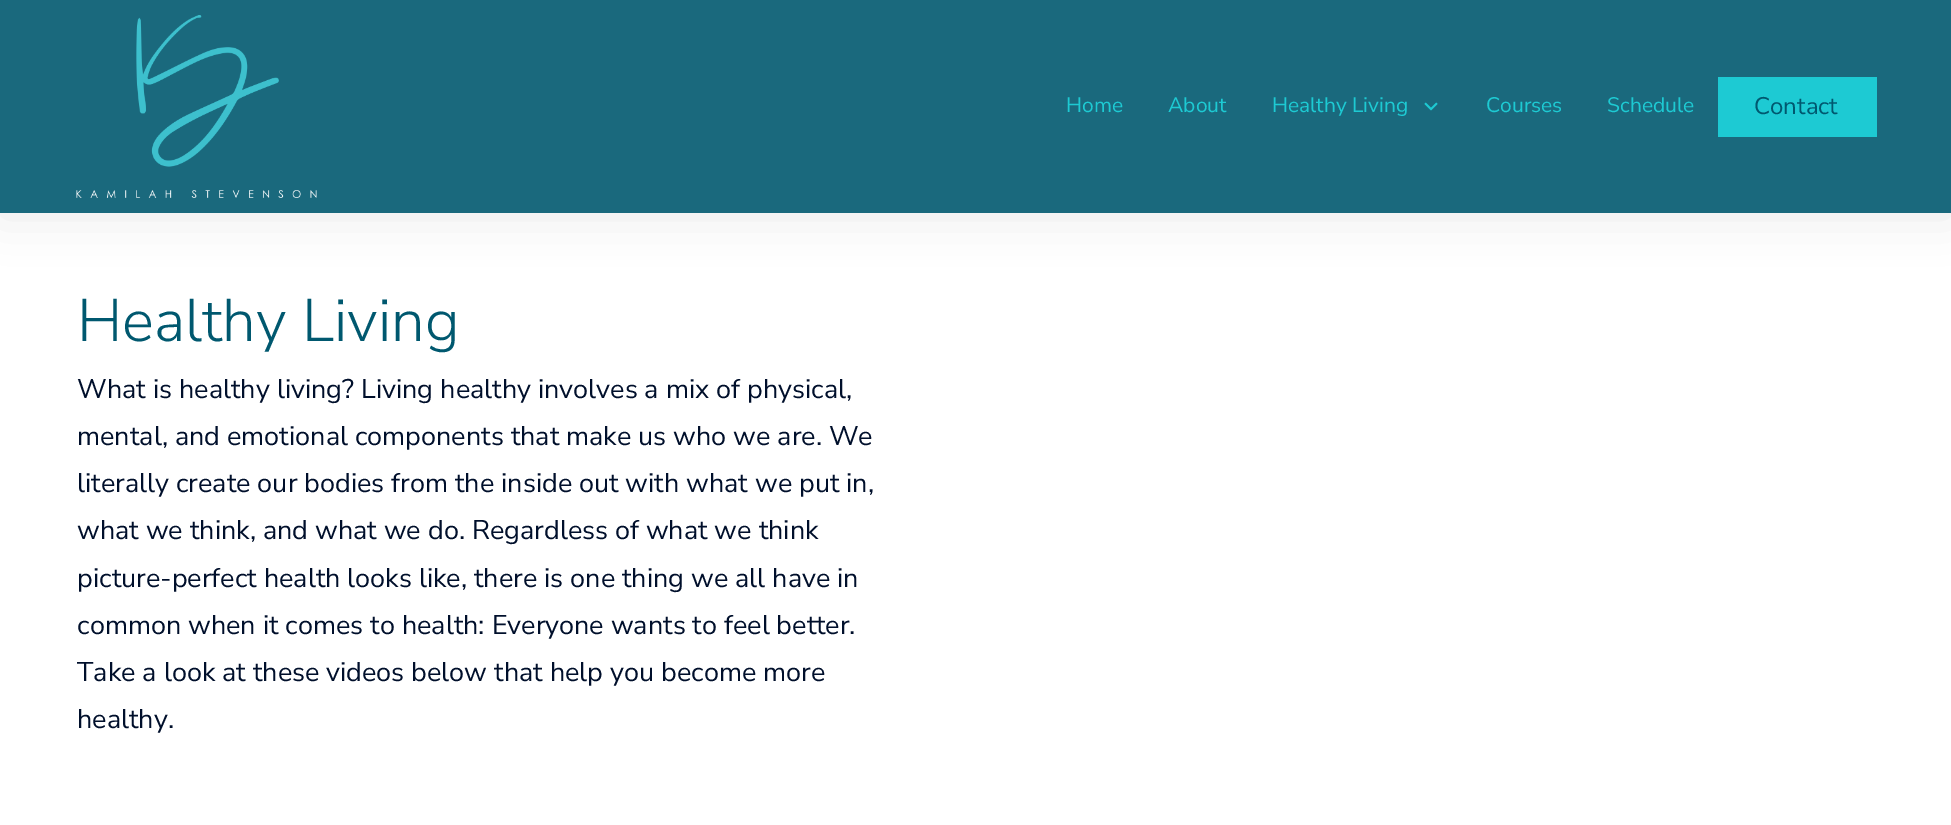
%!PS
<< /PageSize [1951 825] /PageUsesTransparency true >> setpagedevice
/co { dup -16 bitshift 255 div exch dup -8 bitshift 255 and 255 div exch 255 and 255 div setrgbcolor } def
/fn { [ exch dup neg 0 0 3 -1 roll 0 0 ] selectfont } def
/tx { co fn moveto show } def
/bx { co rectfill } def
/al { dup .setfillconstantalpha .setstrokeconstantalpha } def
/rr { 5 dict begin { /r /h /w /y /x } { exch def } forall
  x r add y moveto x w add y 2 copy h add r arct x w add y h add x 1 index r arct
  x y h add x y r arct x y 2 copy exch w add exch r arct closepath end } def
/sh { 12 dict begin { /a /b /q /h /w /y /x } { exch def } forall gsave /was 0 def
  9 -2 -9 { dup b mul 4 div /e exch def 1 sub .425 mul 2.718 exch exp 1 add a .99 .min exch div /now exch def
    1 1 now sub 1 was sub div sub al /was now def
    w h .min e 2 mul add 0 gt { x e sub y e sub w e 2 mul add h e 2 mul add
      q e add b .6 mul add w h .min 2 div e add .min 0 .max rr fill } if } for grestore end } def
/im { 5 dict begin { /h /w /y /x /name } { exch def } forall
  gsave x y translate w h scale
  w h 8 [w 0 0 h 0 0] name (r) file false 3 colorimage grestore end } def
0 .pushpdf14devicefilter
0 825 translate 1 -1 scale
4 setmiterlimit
0 0 1951 825 16#FFFFFF bx
16#000000 co
0 3 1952 213 0 22.5 .08 sh
0 0 1951 213 16#1A697D bx
(media/1.raw) 76 15 241 183 im
(media/2.raw) 1424 102 14 9 im
1718 77 159 60 16#1DCAD3 bx
(Home) 1066 112 /NunitoSans-Regular 21 16#1DCAD3 tx
(About) 1168 112 /NunitoSans-Regular 21 16#1DCAD3 tx
(Healthy Living) 1272 112 /NunitoSans-Regular 21 16#1DCAD3 tx
(Courses) 1486 112 /NunitoSans-Regular 21 16#1DCAD3 tx
(Schedule) 1607 112 /NunitoSans-Regular 21 16#1DCAD3 tx
(Contact) 1754 114 /NunitoSans-Regular 24 16#00586F tx
(Healthy Living) 77 341 /NunitoSans-Light 60 16#00586F tx
(What is healthy living? Living healthy involves a mix of physical,) 77 398 /NunitoSans-Regular 27 16#000F2B tx
(mental, and emotional components that make us who we are. We) 77 445 /NunitoSans-Regular 27 16#000F2B tx
(literally create our bodies from the inside out with what we put in,) 77 492 /NunitoSans-Regular 27 16#000F2B tx
(what we think, and what we do. Regardless of what we think) 77 539 /NunitoSans-Regular 27 16#000F2B tx
(picture-perfect health looks like, there is one thing we all have in) 77 587 /NunitoSans-Regular 27 16#000F2B tx
(common when it comes to health: Everyone wants to feel better.) 77 634 /NunitoSans-Regular 27 16#000F2B tx
(Take a look at these videos below that help you become more) 77 681 /NunitoSans-Regular 27 16#000F2B tx
(healthy.) 77 728 /NunitoSans-Regular 27 16#000F2B tx
.poppdf14devicefilter showpage
